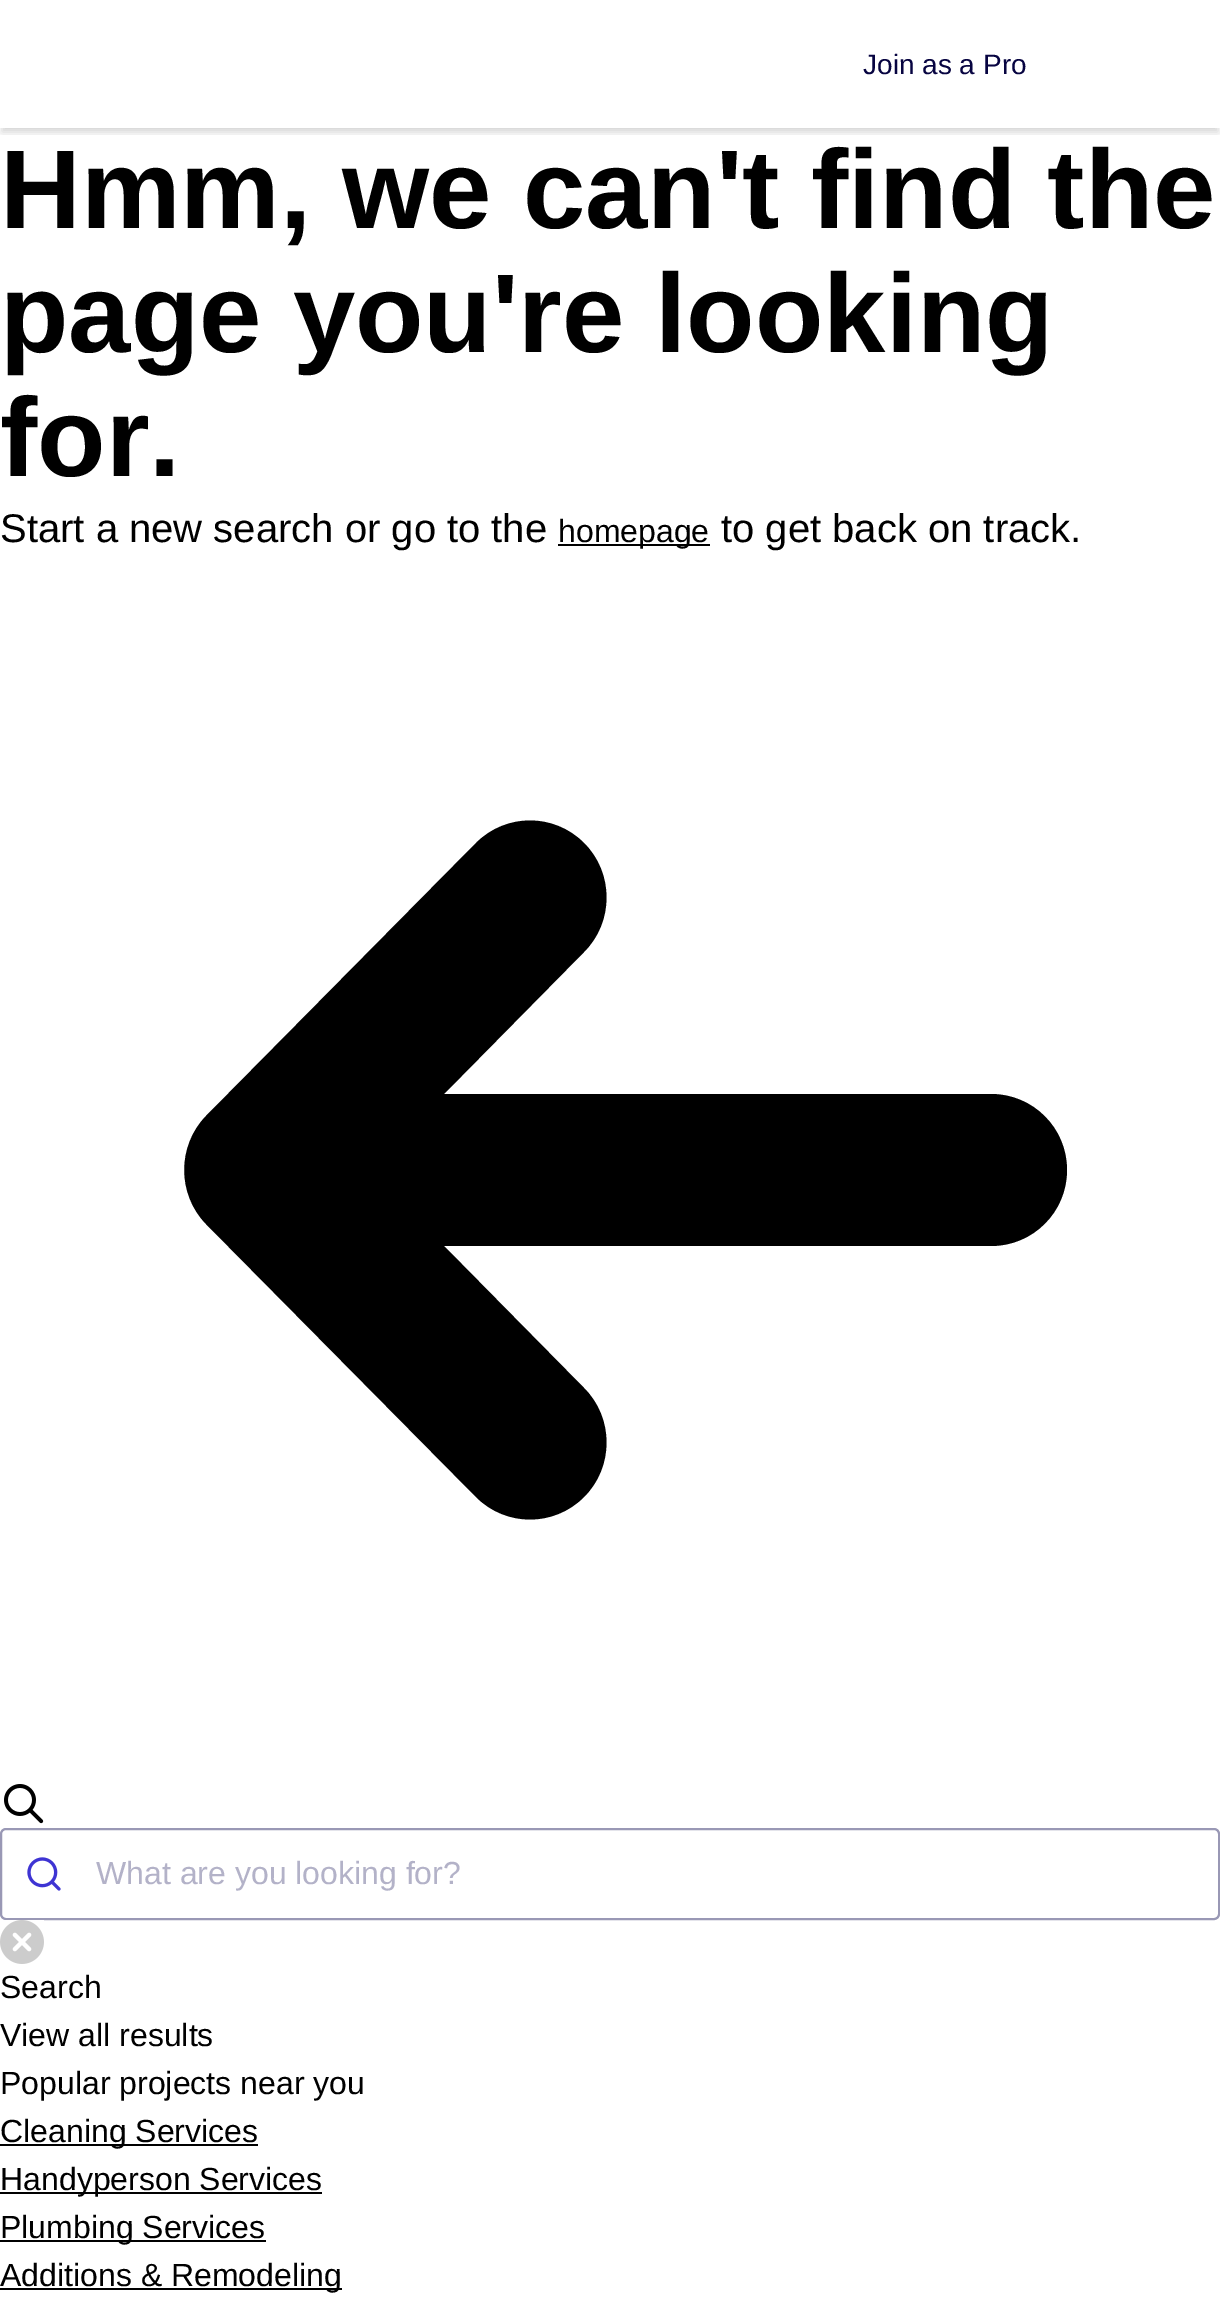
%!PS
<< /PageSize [1220 2298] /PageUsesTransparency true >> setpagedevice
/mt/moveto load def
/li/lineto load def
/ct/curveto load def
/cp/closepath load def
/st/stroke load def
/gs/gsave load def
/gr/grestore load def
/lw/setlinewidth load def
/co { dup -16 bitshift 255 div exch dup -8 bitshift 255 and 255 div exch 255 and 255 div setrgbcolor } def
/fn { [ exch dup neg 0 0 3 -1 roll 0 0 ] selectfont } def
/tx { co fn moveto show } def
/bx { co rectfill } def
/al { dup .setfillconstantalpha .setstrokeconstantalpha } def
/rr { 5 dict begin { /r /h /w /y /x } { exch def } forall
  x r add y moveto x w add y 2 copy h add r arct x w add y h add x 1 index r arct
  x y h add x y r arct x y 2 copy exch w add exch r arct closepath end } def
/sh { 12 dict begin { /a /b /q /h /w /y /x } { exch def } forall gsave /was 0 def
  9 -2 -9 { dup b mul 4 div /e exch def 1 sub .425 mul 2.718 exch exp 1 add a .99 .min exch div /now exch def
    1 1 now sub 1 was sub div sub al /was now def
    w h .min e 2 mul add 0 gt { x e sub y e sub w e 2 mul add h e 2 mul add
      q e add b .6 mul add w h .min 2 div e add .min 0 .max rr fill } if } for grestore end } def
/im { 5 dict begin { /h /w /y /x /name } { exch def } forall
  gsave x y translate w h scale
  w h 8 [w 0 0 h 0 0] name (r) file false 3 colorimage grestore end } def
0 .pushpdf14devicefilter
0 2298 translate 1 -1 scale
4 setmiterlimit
0 0 1220 2298 16#FFFFFF bx
gs
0 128 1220 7 rectclip
16#000000 co
2 8 1216 124 0 4 .08 sh
2 8 1216 124 0 4 .08 sh
gr
558 544 152 2 16#000000 bx
206 1224 mt 476 1497 li 506 1527 554 1527 584 1497 ct 614 1467 614 1418 584 1388 ct 444 1246 li 991 1246 li 1033 1246 1067 1212 1067 1170 ct 1067 1128 1033 1094 991 1094 ct 444 1094 li 584 952 li 614 922 614 873 584 843 ct 554 813 506 813 476 843 ct 206 1116 li 177 1146 177 1194 206 1224 ct cp eofill
(media/1.raw) 4 1784 40 40 im
16#9998B5 co
2 lw
1 1829 1218 90 5 rr st
(media/2.raw) 27 1857 34 34 im
(media/3.raw) 0 1920 44 44 im
0 2144 258 2 16#000000 bx
0 2192 322 2 16#000000 bx
0 2240 266 2 16#000000 bx
0 2288 342 2 16#000000 bx
(Join as a Pro) 863 74 /LiberationSans-Regular 28 16#070441 tx
(Hmm, we can't find the) 0 228 /LiberationSans-Bold 112 16#000000 tx
(page you're looking) 0 352 /LiberationSans-Bold 112 16#000000 tx
(for.) 0 476 /LiberationSans-Bold 112 16#000000 tx
(Start a new search or go to the) 0 542 /LiberationSans-Regular 40 16#000000 tx
(homepage) 558 542 /LiberationSans-Regular 32 16#000000 tx
(to get back on track.) 721 542 /LiberationSans-Regular 40 16#000000 tx
(What are you looking for?) 96 1884 /LiberationSans-Regular 32 16#B3B2C8 tx
(Search) 0 1998 /LiberationSans-Regular 32 16#000000 tx
(View all results) 0 2046 /LiberationSans-Regular 32 16#000000 tx
(Popular projects near you) 0 2094 /LiberationSans-Regular 32 16#000000 tx
(Cleaning Services) 0 2142 /LiberationSans-Regular 32 16#000000 tx
(Handyperson Services) 0 2190 /LiberationSans-Regular 32 16#000000 tx
(Plumbing Services) 0 2238 /LiberationSans-Regular 32 16#000000 tx
(Additions & Remodeling) 0 2286 /LiberationSans-Regular 32 16#000000 tx
.poppdf14devicefilter showpage
